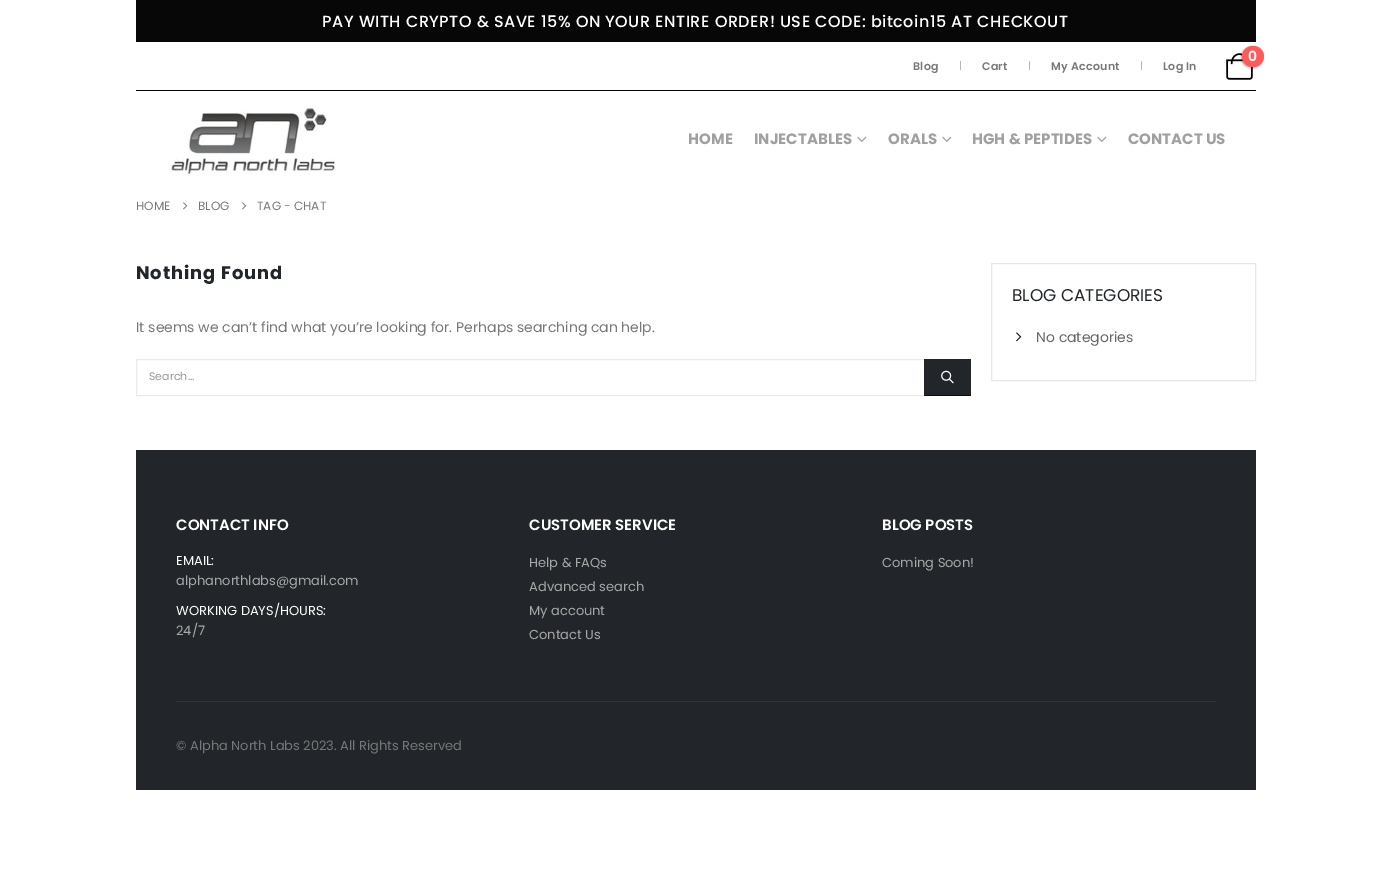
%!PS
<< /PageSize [1391 883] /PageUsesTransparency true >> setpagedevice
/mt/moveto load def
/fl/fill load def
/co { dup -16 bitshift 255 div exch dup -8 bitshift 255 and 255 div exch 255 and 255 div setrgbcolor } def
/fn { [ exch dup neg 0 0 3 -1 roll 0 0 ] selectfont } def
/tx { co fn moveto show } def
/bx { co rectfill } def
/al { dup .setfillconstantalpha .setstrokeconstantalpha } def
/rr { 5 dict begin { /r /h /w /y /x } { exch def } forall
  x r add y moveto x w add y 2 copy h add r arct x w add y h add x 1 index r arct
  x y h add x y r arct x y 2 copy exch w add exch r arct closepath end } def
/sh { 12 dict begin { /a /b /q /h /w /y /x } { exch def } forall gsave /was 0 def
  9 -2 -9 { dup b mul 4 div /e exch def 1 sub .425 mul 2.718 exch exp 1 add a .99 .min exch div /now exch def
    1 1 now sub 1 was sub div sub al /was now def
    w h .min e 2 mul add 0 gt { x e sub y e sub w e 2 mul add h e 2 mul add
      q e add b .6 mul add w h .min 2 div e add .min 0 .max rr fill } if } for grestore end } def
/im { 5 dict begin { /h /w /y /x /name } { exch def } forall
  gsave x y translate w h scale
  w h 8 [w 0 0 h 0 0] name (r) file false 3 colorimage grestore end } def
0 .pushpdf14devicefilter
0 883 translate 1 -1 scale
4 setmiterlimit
0 0 1391 883 16#FFFFFF bx
136 0 1120 42 16#070707 bx
136 90 1120 1 16#000000 bx
(media/1.raw) 1226 53 27 27 im
1241 47 22 21 10.5 1 .3 sh
16#FF5B5B co
1242 46 22 21 10.5 rr fl
(media/2.raw) 171 105 166 69 im
(media/3.raw) 857 136 10 6 im
(media/3.raw) 942 136 10 6 im
(media/3.raw) 1097 136 10 6 im
(media/4.raw) 183 202 5 8 im
(media/4.raw) 242 202 5 8 im
16#EBEBEB co
136.5 359.5 788 36 rectstroke
925 359 46 36 16#222529 bx
924 395 47 1 16#0B0C0E bx
924 359 1 37 16#222529 bx
(media/5.raw) 941 370 13 14 im
16#E7E7E7 co
991.5 263.5 264 117 rectstroke
(media/6.raw) 1016 332 6 10 im
136 450 1120 340 16#222529 bx
176 701 1040 1 16#313438 bx
/Poppins-Medium 16 fn
16#FFFFFF co
322 27 mt .5 0 (PAY WITH CRYPTO & SAVE 15% ON YOUR ENTIRE ORDER! USE CODE: bitcoin15 AT CHECKOUT) ashow
/Poppins-SemiBold 14 fn
1248 61 mt .25 0 (0) ashow
/Poppins-SemiBold 11 fn
16#777777 co
913 70 mt .25 0 (Blog) ashow
/Poppins-Regular 10 fn
16#B7B7B7 co
959 69 mt .25 0 (|) ashow
/Poppins-SemiBold 11 fn
16#777777 co
982 70 mt .25 0 (Cart) ashow
/Poppins-Regular 10 fn
16#B7B7B7 co
1028 69 mt .25 0 (|) ashow
/Poppins-SemiBold 11 fn
16#777777 co
1051 70 mt .25 0 (My Account) ashow
/Poppins-Regular 10 fn
16#B7B7B7 co
1140 69 mt .25 0 (|) ashow
/Poppins-SemiBold 11 fn
16#777777 co
1163 70 mt .25 0 (Log In) ashow
(HOME) 688 144 /Poppins-Bold 15 16#A0A0A0 tx
(INJECTABLES) 754 144 /Poppins-Bold 15 16#A0A0A0 tx
(ORALS) 888 144 /Poppins-Bold 15 16#A0A0A0 tx
(HGH & PEPTIDES) 972 144 /Poppins-Bold 15 16#A0A0A0 tx
(CONTACT US) 1128 144 /Poppins-Bold 15 16#A0A0A0 tx
(HOME) 136 210 /Poppins-Regular 12 16#777777 tx
(BLOG) 198 210 /Poppins-Regular 12 16#777777 tx
(TAG - CHAT) 257 210 /Poppins-Regular 12 16#777777 tx
/Poppins-Bold 18 fn
16#222529 co
136 279 mt .9 0 (Nothing Found) ashow
(It seems we can’t find what you’re looking for. Perhaps searching can help.) 136 332 /Poppins-Regular 14 16#777777 tx
(Search…) 149 380 /Poppins-Regular 11 16#999999 tx
(BLOG CATEGORIES) 1012 301 /Poppins-Regular 17 16#222529 tx
(No categories) 1036 342 /Poppins-Regular 14 16#666666 tx
(CONTACT INFO) 176 530 /Poppins-SemiBold 15 16#FFFFFF tx
(EMAIL:) 176 565 /Poppins-Regular 13 16#FFFFFF tx
(alphanorthlabs@gmail.com) 176 585 /Poppins-Regular 13 16#A8A8A8 tx
(WORKING DAYS/HOURS:) 176 615 /Poppins-Regular 13 16#FFFFFF tx
(24/7) 176 635 /Poppins-Regular 13 16#A8A8A8 tx
(CUSTOMER SERVICE) 529 530 /Poppins-SemiBold 15 16#FFFFFF tx
(Help & FAQs) 529 567 /Poppins-Regular 13 16#A8A8A8 tx
(Advanced search) 529 591 /Poppins-Regular 13 16#A8A8A8 tx
(My account) 529 615 /Poppins-Regular 13 16#A8A8A8 tx
(Contact Us) 529 639 /Poppins-Regular 13 16#A8A8A8 tx
(BLOG POSTS) 882 530 /Poppins-SemiBold 15 16#FFFFFF tx
(Coming Soon!) 882 567 /Poppins-Regular 13 16#A8A8A8 tx
(© Alpha North Labs 2023. All Rights Reserved) 176 750 /Poppins-Regular 13 16#777777 tx
.poppdf14devicefilter showpage
